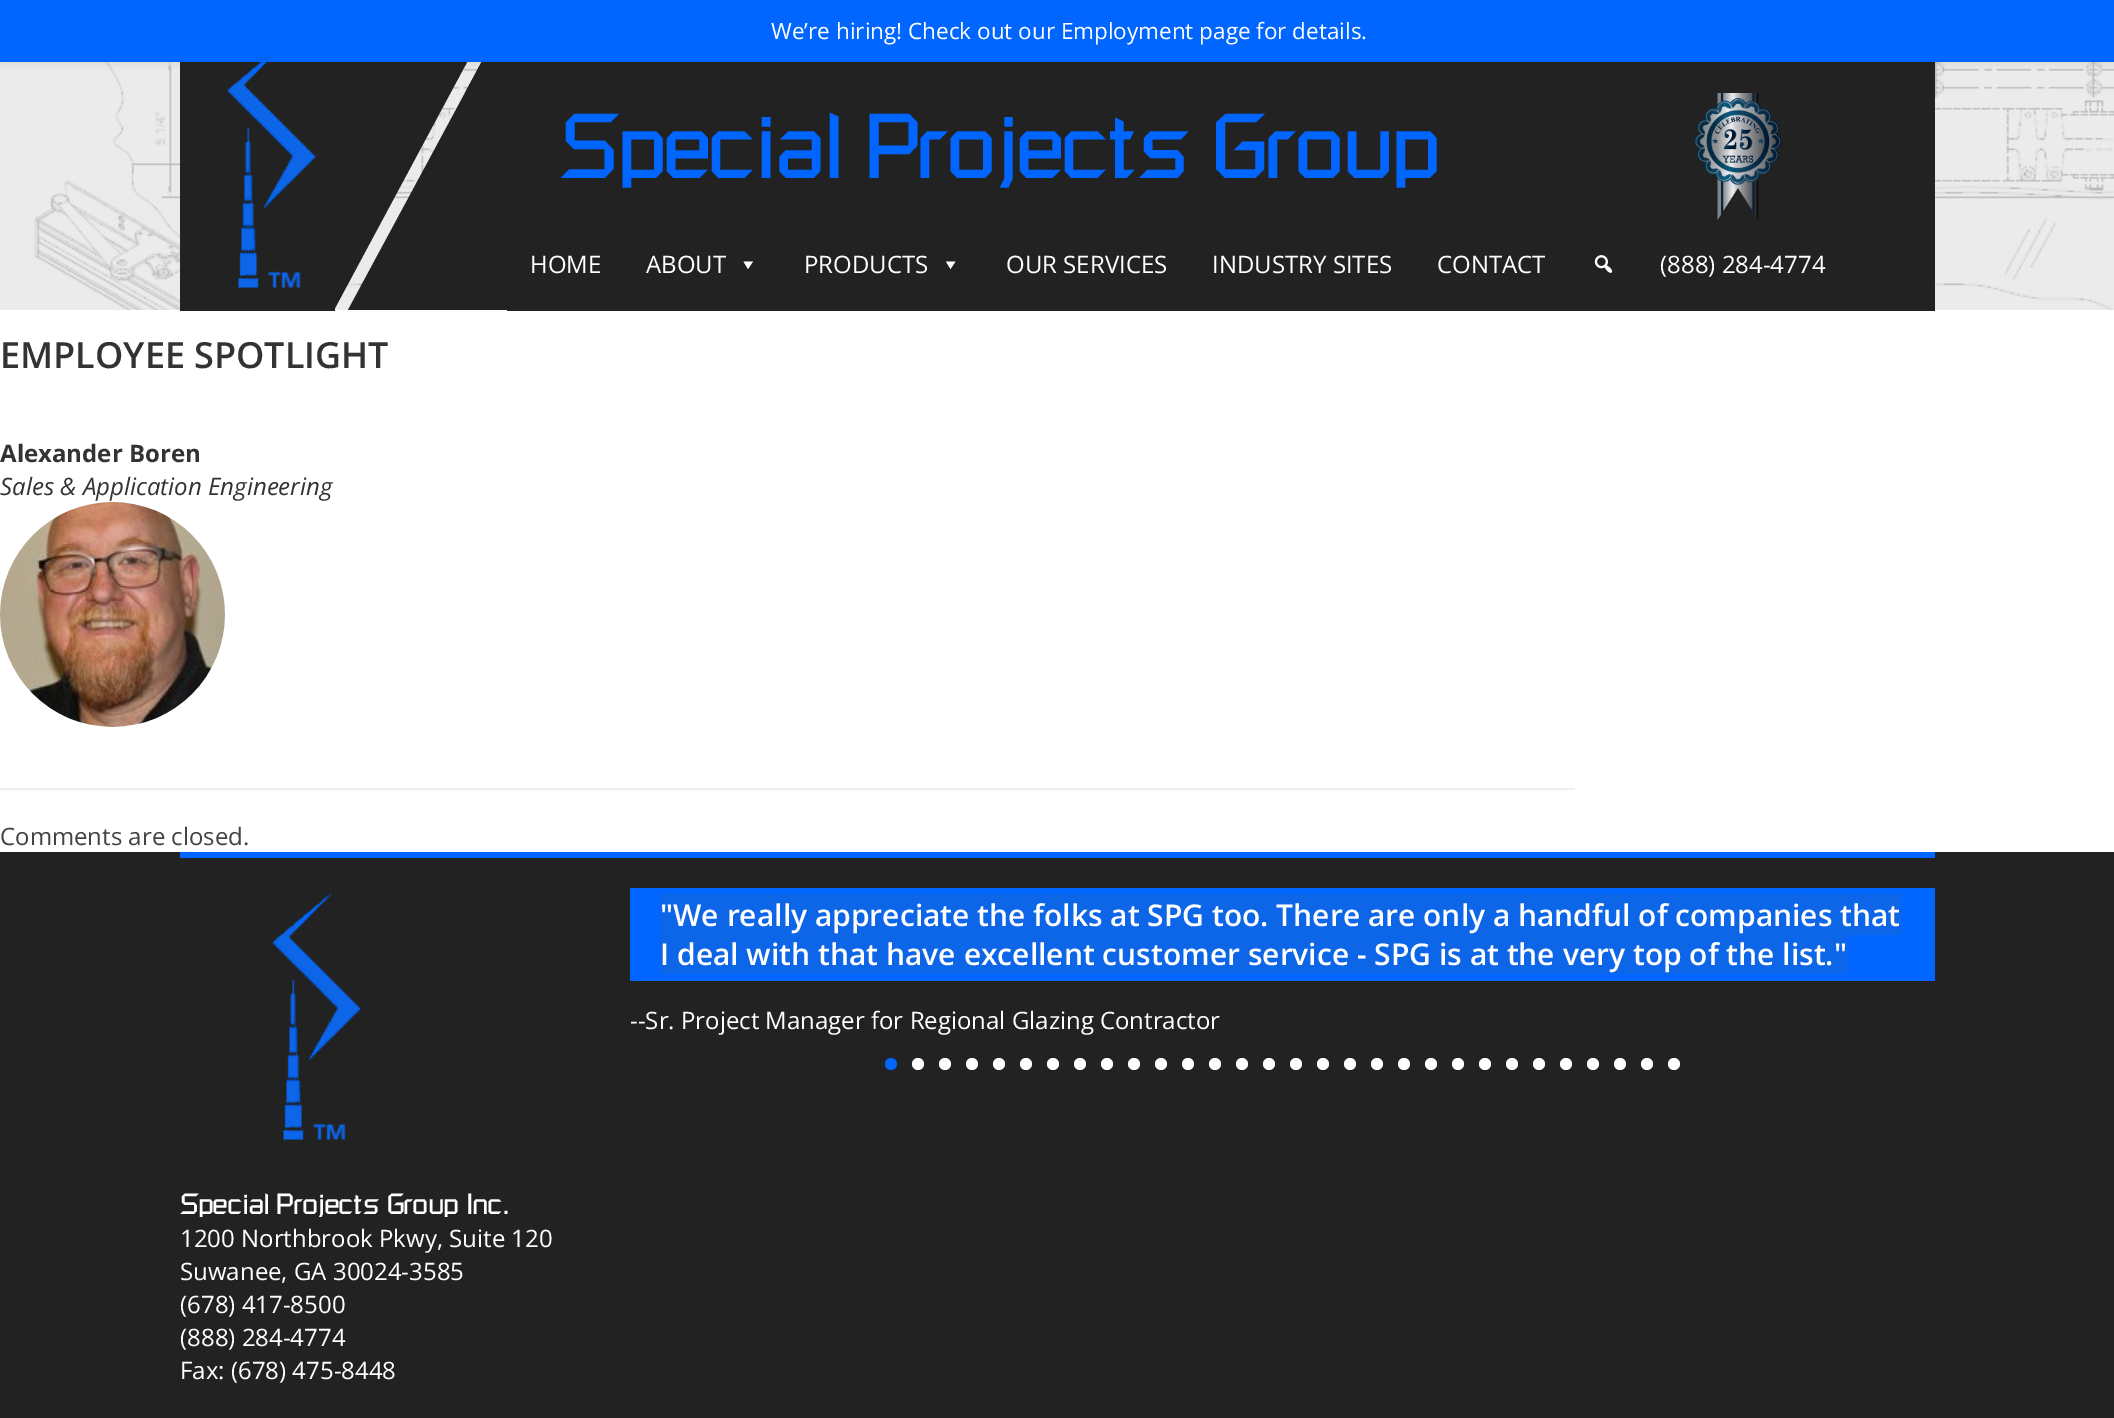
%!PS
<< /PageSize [2114 1418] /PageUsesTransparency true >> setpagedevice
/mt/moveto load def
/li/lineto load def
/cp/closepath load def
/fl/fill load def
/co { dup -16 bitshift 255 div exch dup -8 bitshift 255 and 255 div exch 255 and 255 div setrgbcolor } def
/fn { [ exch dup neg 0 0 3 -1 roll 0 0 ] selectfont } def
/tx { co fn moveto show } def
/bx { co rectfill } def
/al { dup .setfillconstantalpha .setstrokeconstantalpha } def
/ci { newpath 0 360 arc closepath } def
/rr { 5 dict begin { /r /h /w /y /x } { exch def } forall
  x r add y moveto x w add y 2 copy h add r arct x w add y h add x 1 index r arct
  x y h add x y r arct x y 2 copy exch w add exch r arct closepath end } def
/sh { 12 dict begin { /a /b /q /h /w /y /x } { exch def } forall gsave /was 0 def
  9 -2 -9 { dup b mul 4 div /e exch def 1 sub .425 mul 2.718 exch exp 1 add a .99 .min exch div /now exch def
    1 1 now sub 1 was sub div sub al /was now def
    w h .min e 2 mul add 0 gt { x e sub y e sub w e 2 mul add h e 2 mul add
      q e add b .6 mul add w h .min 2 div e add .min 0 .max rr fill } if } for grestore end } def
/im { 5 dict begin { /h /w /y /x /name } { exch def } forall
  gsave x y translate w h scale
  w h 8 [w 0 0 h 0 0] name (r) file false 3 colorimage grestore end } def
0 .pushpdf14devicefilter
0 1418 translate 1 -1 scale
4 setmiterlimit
0 0 2114 1418 16#FFFFFF bx
(media/1.raw) 0 62 2114 248 im
180 62 155 249 16#222222 bx
(media/2.raw) 227 62 89 226 im
334 10 mt 495 10 li 334 310 li cp fl
507 62 1428 249 16#222222 bx
507 15 mt 507 310 li 348 310 li cp fl
507 15 mt 507 93 li 465 93 li cp fl
16#000000 co
0 5 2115 61 0 3 .05 sh
0 0 2114 62 16#0066FF bx
(media/3.raw) 1694 93 88 127 im
16#FFFFFF co
753 261.5 mt 748 269 li 743.5 261.5 li cp fl
955.5 261.5 mt 950.5 269 li 946 261.5 li cp fl
(media/4.raw) 1594 255 19 18 im
(media/5.raw) 0 502 225 225 im
0 788 1575 2 16#EEEEEE bx
0 852 2114 566 16#222222 bx
180 852 1755 6 16#0066FF bx
630 888 1305 93 16#0066FF bx
660 894 1241 41 16#0D65E8 bx
660 935 1187 39 16#0D65E8 bx
16#0066FF co
891 1064 6 ci fl
16#FFFFFF co
918 1064 6 ci fl
945 1064 6 ci fl
972 1064 6 ci fl
999 1064 6 ci fl
1026 1064 6 ci fl
1053 1064 6 ci fl
1080 1064 6 ci fl
1107 1064 6 ci fl
1134 1064 6 ci fl
1161 1064 6 ci fl
1188 1064 6 ci fl
1215 1064 6 ci fl
1242 1064 6 ci fl
1269 1064 6 ci fl
1296 1064 6 ci fl
1323 1064 6 ci fl
1350 1064 6 ci fl
1377 1064 6 ci fl
1404 1064 6 ci fl
1431 1064 6 ci fl
1458 1064 6 ci fl
1485 1064 6 ci fl
1512 1064 6 ci fl
1539 1064 6 ci fl
1566 1064 6 ci fl
1593 1064 6 ci fl
1620 1064 6 ci fl
1647 1064 6 ci fl
1674 1064 6 ci fl
(media/6.raw) 272 893 89 247 im
(We’re hiring! Check out our Employment page for details.) 771 39 /OpenSans-Regular 22.5 16#FFFFFF tx
(Special Projects Group) 560 178 /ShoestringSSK-Regular 90 16#0066FF tx
(HOME) 530 273 /OpenSans-Regular 24 16#FFFFFF tx
(ABOUT) 646 273 /OpenSans-Regular 24 16#FFFFFF tx
(PRODUCTS) 804 273 /OpenSans-Regular 24 16#FFFFFF tx
(OUR SERVICES) 1006 273 /OpenSans-Regular 24 16#FFFFFF tx
(INDUSTRY SITES) 1212 273 /OpenSans-Regular 24 16#FFFFFF tx
(CONTACT) 1437 273 /OpenSans-Regular 24 16#FFFFFF tx
(\(888\) 284-4774) 1660 273 /OpenSans-Regular 24 16#FFFFFF tx
(EMPLOYEE SPOTLIGHT) 0 368 /OpenSans-SemiBold 36 16#333333 tx
(Alexander Boren) 0 462 /OpenSans-Bold 24 16#333333 tx
(Sales & Application Engineering) 0 495 /OpenSans-Italic 24 16#333333 tx
(Comments are closed.) 0 845 /OpenSans-Regular 24 16#444242 tx
("We really appreciate the folks at SPG too. There are only a handful of companies that) 660 926 /OpenSans-SemiBold 30 16#FFFFFF tx
(I deal with that have excellent customer service - SPG is at the very top of the list.") 660 965 /OpenSans-SemiBold 30 16#FFFFFF tx
(--Sr. Project Manager for Regional Glazing Contractor) 630 1029 /OpenSans-Regular 24 16#FFFFFF tx
(Special Projects Group Inc.) 180 1214 /ShoestringSSK-Regular 28.5 16#FFFFFF tx
(1200 Northbrook Pkwy, Suite 120) 180 1247 /OpenSans-Regular 24 16#FFFFFF tx
(Suwanee, GA 30024-3585) 180 1280 /OpenSans-Regular 24 16#FFFFFF tx
(\(678\) 417-8500) 180 1313 /OpenSans-Regular 24 16#FFFFFF tx
(\(888\) 284-4774) 180 1346 /OpenSans-Regular 24 16#FFFFFF tx
(Fax: \(678\) 475-8448) 180 1379 /OpenSans-Regular 24 16#FFFFFF tx
.poppdf14devicefilter showpage
